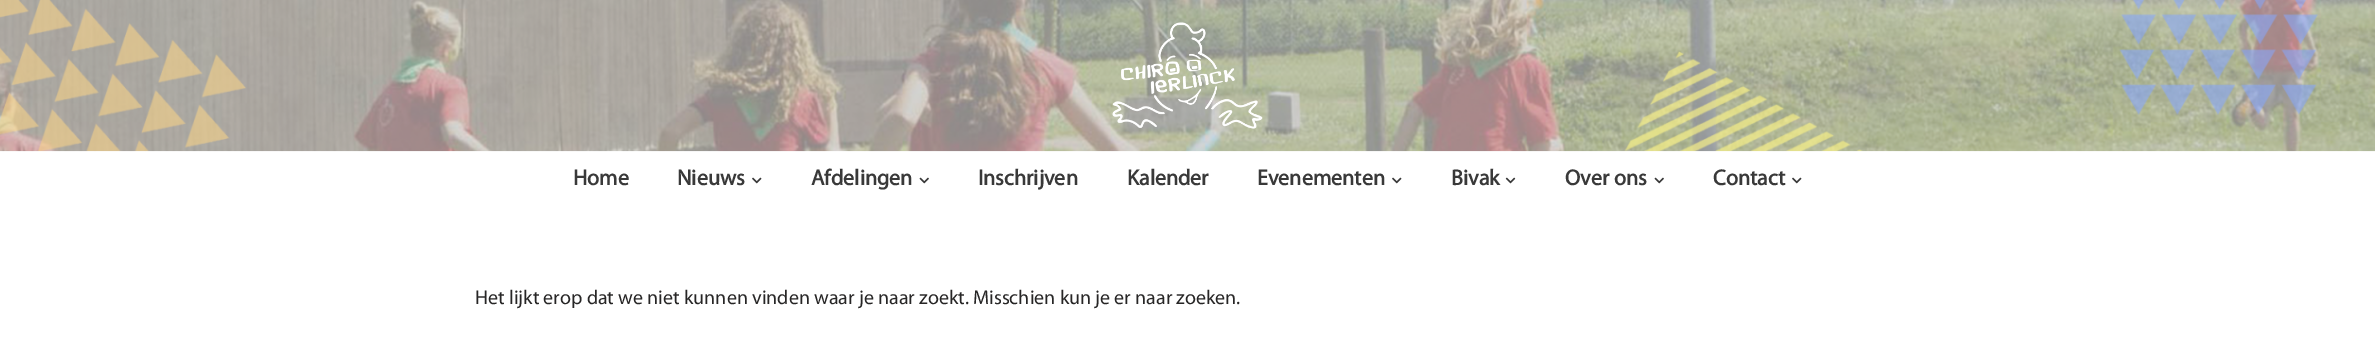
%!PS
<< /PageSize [2375 337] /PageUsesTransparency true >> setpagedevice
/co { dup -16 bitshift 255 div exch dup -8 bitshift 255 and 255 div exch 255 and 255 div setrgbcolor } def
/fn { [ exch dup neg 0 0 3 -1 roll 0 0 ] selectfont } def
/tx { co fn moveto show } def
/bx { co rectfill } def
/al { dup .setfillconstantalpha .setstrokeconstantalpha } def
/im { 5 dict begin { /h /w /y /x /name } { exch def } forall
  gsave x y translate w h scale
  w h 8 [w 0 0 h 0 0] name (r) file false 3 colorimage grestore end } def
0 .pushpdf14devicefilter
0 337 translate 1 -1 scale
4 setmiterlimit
0 0 2375 337 16#FFFFFF bx
(media/1.raw) 0 0 2375 152 im
(media/2.raw) 1112 22 151 107 im
0.84 al
0 151 2375 1 16#FFFFFF bx
1 al
(media/3.raw) 752 177 10 7 im
(media/4.raw) 919 177 10 7 im
(media/3.raw) 1392 177 10 7 im
(media/5.raw) 1505 177 11 7 im
(media/4.raw) 1654 177 10 7 im
(media/3.raw) 1792 177 10 7 im
(Home) 573 185 /Myriad-Bold 22 16#393939 tx
(Nieuws) 677 185 /Myriad-Bold 22 16#393939 tx
(Afdelingen) 811 185 /Myriad-Bold 22 16#393939 tx
(Inschrijven) 978 185 /Myriad-Bold 22 16#393939 tx
(Kalender) 1127 185 /Myriad-Bold 22 16#393939 tx
(Evenementen) 1257 185 /Myriad-Bold 22 16#393939 tx
(Bivak) 1451 185 /Myriad-Bold 22 16#393939 tx
(Over ons) 1565 185 /Myriad-Bold 22 16#393939 tx
(Contact) 1713 185 /Myriad-Bold 22 16#393939 tx
(Het lijkt erop dat we niet kunnen vinden waar je naar zoekt. Misschien kun je er naar zoeken.) 475 304 /Myriad-Regular 20 16#272626 tx
.poppdf14devicefilter showpage
